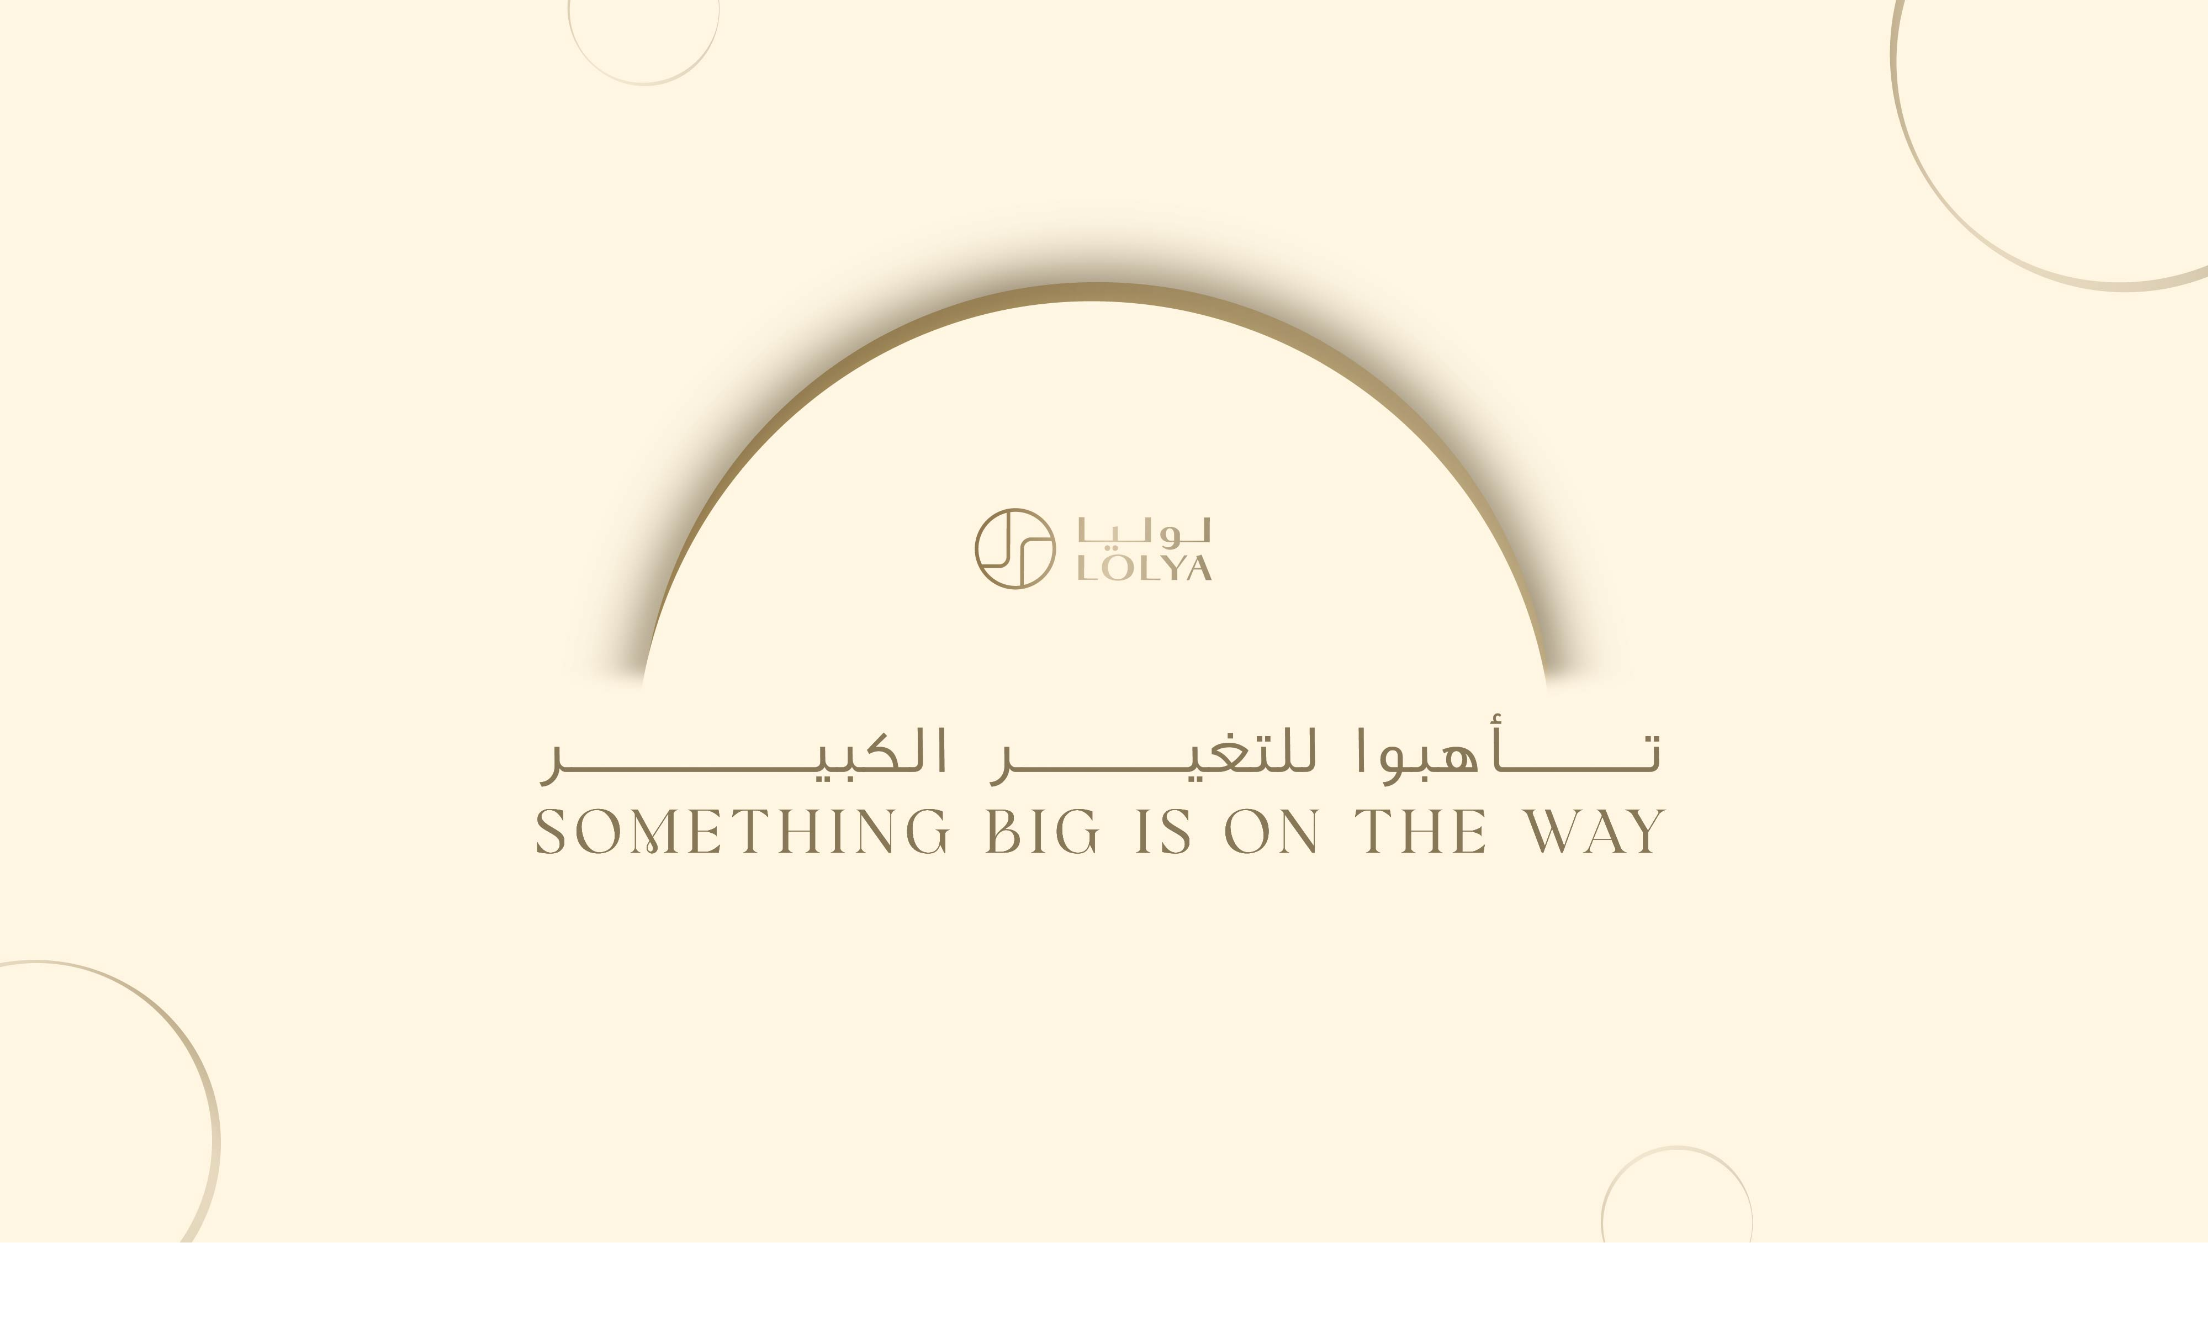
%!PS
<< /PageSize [2208 1338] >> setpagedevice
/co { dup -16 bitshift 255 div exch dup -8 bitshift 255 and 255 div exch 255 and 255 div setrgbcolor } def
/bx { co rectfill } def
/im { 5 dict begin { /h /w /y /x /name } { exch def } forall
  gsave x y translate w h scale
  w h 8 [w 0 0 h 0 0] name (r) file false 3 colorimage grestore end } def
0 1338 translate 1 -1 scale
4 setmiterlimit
0 0 2208 1338 16#FFFFFF bx
(media/1.raw) 0 0 2208 1243 im
showpage
